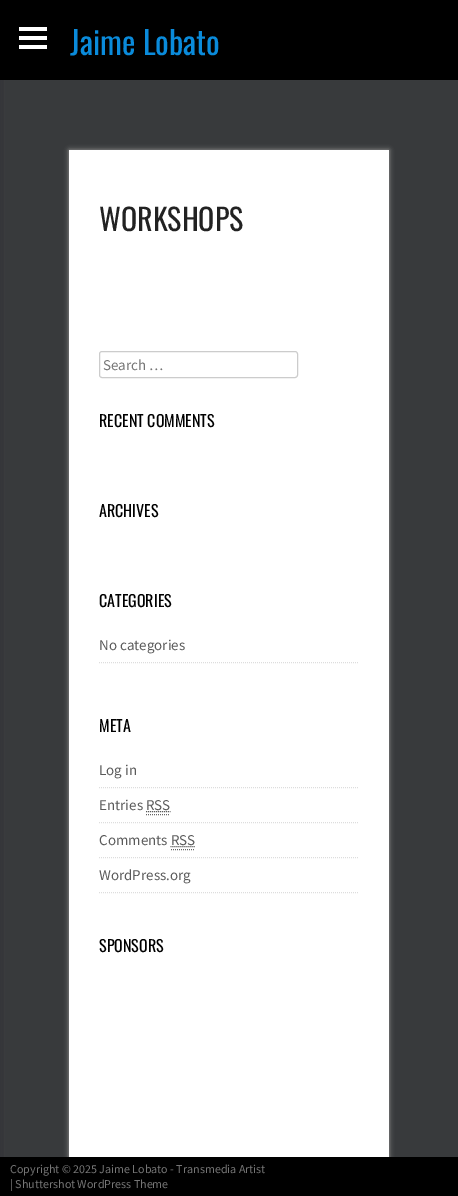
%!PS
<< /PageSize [458 1196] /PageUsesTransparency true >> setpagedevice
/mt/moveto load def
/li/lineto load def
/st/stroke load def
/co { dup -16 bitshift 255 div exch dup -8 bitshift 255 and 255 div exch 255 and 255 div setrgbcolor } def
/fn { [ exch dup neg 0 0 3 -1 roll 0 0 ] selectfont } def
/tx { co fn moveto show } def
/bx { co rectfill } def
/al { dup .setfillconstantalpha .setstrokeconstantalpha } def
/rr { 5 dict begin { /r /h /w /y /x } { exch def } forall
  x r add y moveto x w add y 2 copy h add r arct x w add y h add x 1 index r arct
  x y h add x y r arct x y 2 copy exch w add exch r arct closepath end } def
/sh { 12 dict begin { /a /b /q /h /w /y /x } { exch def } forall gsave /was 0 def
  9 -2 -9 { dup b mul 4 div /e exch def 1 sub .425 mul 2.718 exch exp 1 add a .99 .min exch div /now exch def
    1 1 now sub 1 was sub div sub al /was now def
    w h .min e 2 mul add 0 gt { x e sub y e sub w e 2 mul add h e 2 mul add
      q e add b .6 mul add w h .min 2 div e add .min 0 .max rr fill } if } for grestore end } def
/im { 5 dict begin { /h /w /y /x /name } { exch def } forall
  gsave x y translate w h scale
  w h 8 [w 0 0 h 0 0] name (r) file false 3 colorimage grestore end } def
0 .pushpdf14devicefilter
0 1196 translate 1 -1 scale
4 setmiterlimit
0 0 458 1196 16#FFFFFF bx
(media/1.raw) 0 80 458 1077 im
0 0 458 80 16#000000 bx
(media/2.raw) 19 27 28 22 im
16#999999 co
69 150 320 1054 0 2.5 1 sh
69 150 320 1007 16#FFFFFF bx
16#CCCCCC co
99.5 351.5 198 26 2.5 rr st
16#DDDDDD co
[1 1] 0 setdash
99 662.5 mt 359 662.5 li st
99 787.5 mt 359 787.5 li st
99 822.5 mt 359 822.5 li st
16#666666 co
146 814.5 mt 170 814.5 li st
16#5A5A5A co
146 811.5 mt 170.5 811.5 li st
16#DDDDDD co
99 857.5 mt 359 857.5 li st
16#666666 co
171 849.5 mt 195 849.5 li st
16#5A5A5A co
170.5 846.5 mt 195 846.5 li st
16#DDDDDD co
99 892.5 mt 359 892.5 li st
0 1157 458 39 16#000000 bx
(Jaime Lobato) 70 55 /Oswald-Regular 32 16#0A8BDB tx
(WORKSHOPS) 99 231 /Oswald-Regular 30 16#222222 tx
(Search …) 103 370 /SourceSansPro-Regular 15 16#757575 tx
(RECENT COMMENTS) 99 427 /Oswald-Regular 16 16#000000 tx
(ARCHIVES) 99 517 /Oswald-Regular 16 16#000000 tx
(CATEGORIES) 99 607 /Oswald-Regular 16 16#000000 tx
(No categories) 99 650 /SourceSansPro-Regular 15 16#5A5A5A tx
(META) 99 732 /Oswald-Regular 16 16#000000 tx
(Log in) 99 775 /SourceSansPro-Regular 15 16#5A5A5A tx
(Entries RSS) 99 810 /SourceSansPro-Regular 15 16#5A5A5A tx
(Comments RSS) 99 845 /SourceSansPro-Regular 15 16#5A5A5A tx
(WordPress.org) 99 880 /SourceSansPro-Regular 15 16#5A5A5A tx
(SPONSORS) 99 952 /Oswald-Regular 16 16#000000 tx
(Copyright © 2025 Jaime Lobato - Transmedia Artist) 10 1173 /SourceSansPro-Regular 12 16#757575 tx
(| Shuttershot WordPress Theme) 10 1188 /SourceSansPro-Regular 12 16#757575 tx
.poppdf14devicefilter showpage
